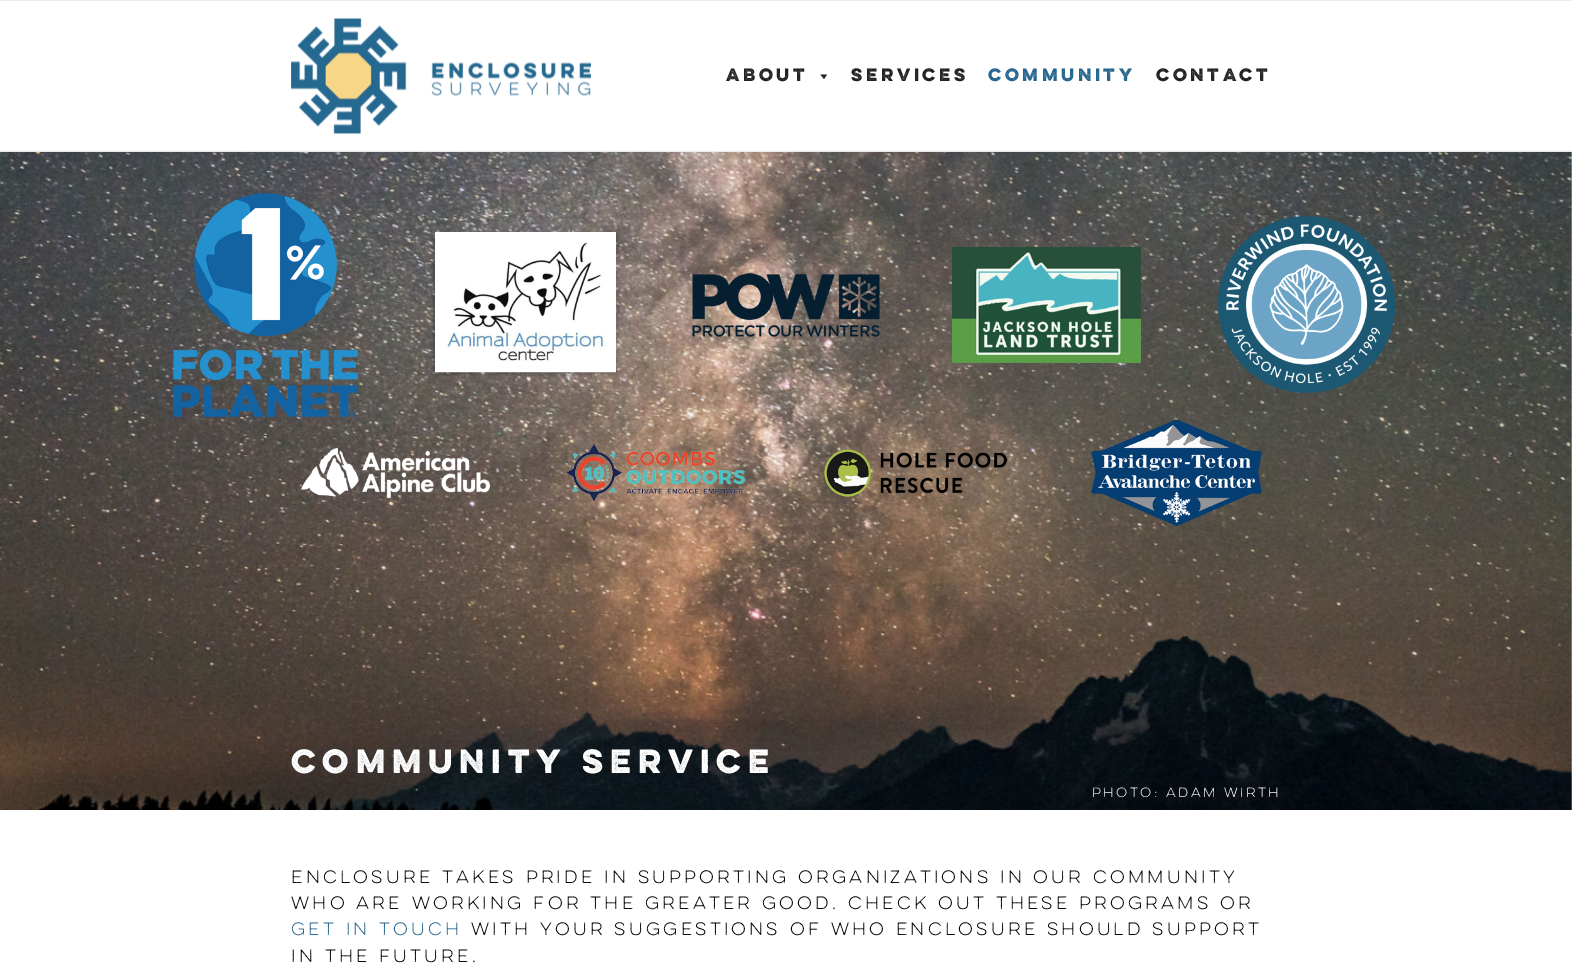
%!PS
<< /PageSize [1572 968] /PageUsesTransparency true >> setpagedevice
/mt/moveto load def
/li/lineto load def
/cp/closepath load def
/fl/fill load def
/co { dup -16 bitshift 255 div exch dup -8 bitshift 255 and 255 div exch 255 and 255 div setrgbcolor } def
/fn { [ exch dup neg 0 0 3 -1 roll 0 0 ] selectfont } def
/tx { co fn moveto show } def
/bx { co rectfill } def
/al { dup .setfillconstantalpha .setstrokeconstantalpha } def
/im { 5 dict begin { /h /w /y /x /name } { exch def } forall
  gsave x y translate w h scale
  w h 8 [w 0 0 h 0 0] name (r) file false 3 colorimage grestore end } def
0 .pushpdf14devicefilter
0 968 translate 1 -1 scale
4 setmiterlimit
0 0 1572 968 16#FFFFFF bx
0 0 1572 1 16#EBEBEB bx
(media/11.raw) 0 150 1572 660 im
0 151 1572 1 16#EBEBEB bx
(media/1.raw) 291 18 300 116 im
16#222222 co
827 74.5 mt 824 79 li 820.5 74.5 li cp fl
0.95 al
0 150 1572 1 16#FFFFFF bx
1 al
(media/2.raw) 173 193 185 224 im
(media/3.raw) 431 232 189 144 im
(media/4.raw) 692 273 188 64 im
(media/5.raw) 952 247 189 116 im
(media/6.raw) 1217 216 179 177 im
(media/7.raw) 301 448 189 50 im
(media/8.raw) 566 444 180 58 im
(media/9.raw) 824 449 184 48 im
(media/10.raw) 1091 419 171 107 im
(ABOUT) 726 81 /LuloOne-Bold 16 16#222222 tx
(SERVICES) 851 81 /LuloOne-Bold 16 16#222222 tx
(COMMUNITY) 988 81 /LuloOne-Bold 16 16#26668E tx
(CONTACT) 1156 81 /LuloOne-Bold 16 16#222222 tx
(COMMUNITY SERVICE) 291 773 /LuloOne-Bold 30 16#FFFFFF tx
(Photo: Adam Wirth) 1092 797 /LuloOne-Regular 12 16#FFFFFF tx
(Enclosure takes pride in supporting organizations in our community) 291 883 /LuloOne-Regular 16 16#000000 tx
(who are working for the greater good. Check out these programs or) 291 909 /LuloOne-Regular 16 16#000000 tx
(get in touch) 291 935 /LuloOne-Regular 16 16#26668E tx
(with your suggestions of who Enclosure should support) 471 935 /LuloOne-Regular 16 16#000000 tx
(in the future.) 291 962 /LuloOne-Regular 16 16#000000 tx
.poppdf14devicefilter showpage
